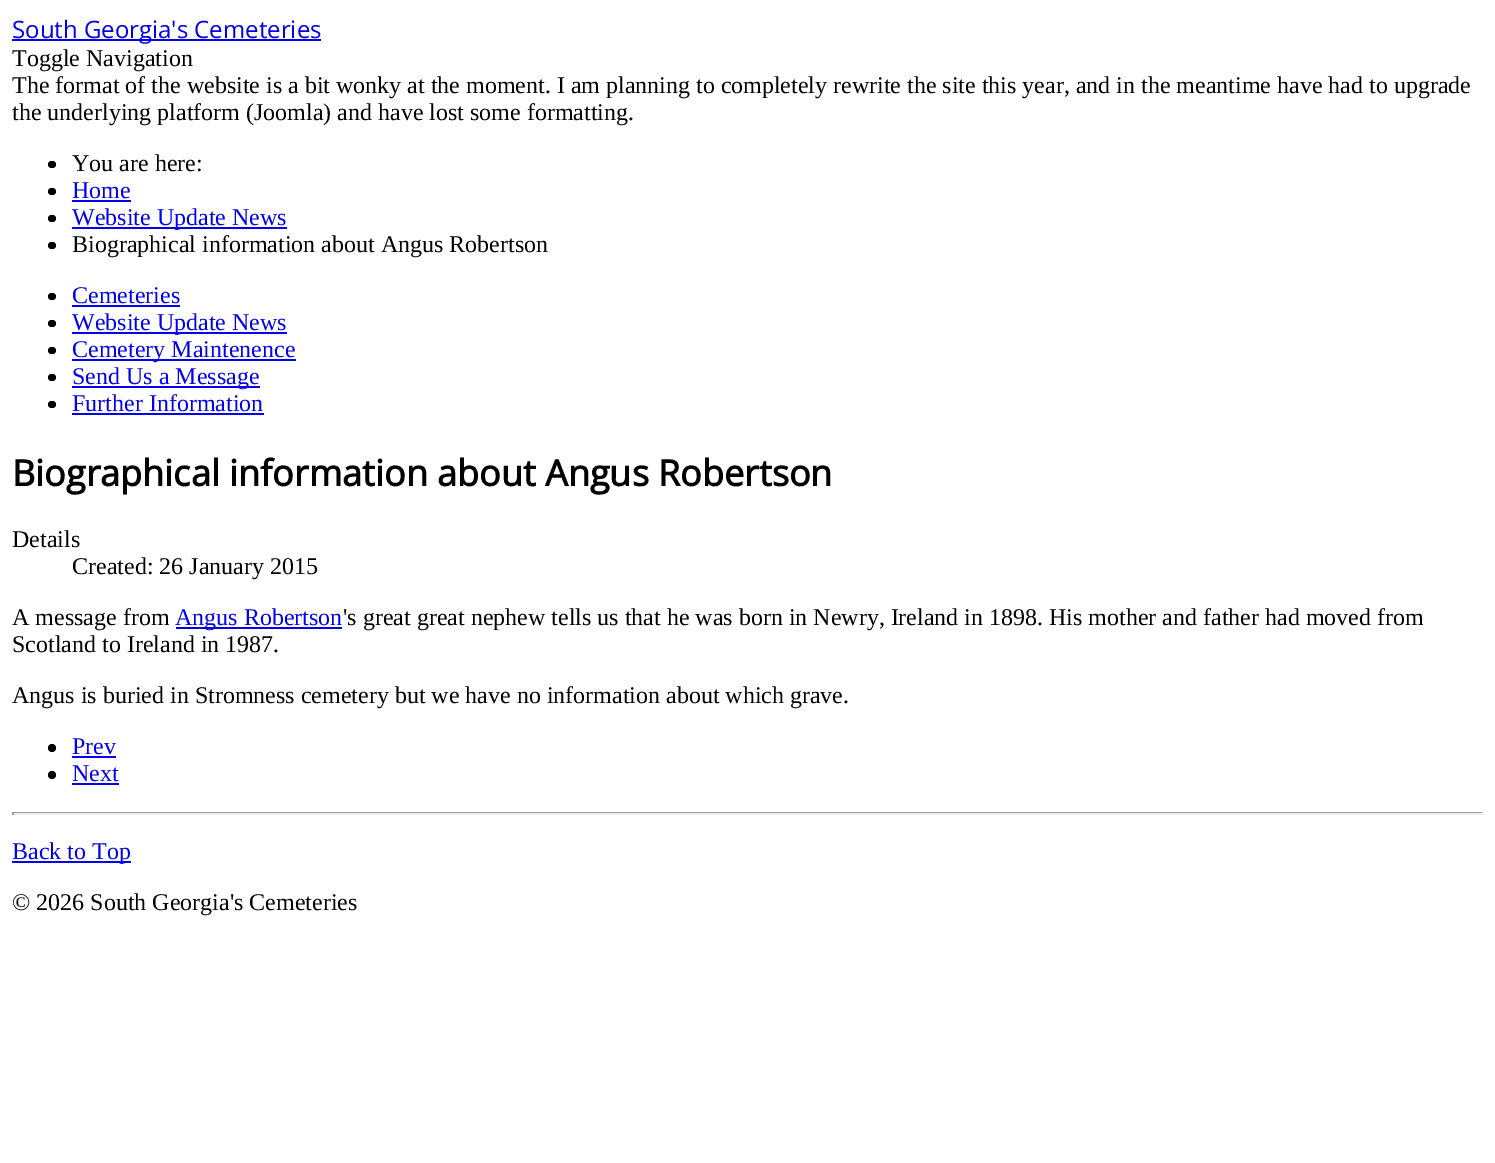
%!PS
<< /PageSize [1495 1163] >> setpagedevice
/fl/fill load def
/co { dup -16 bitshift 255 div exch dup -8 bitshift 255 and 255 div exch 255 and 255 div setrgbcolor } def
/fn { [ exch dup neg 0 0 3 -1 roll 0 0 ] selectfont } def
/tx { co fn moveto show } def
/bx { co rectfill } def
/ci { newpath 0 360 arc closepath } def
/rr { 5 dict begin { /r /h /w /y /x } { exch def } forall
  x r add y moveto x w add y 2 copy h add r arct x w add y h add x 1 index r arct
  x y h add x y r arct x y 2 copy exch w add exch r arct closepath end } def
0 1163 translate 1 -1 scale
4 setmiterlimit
0 0 1495 1163 16#FFFFFF bx
12 39 309 2 16#0000EE bx
16#000000 co
48 161 8 7 3.5 rr fl
48 188 8 7 3.5 rr fl
72 200 59 2 16#0000EE bx
16#000000 co
48 215 8 7 3.5 rr fl
72 227 215 2 16#0000EE bx
16#000000 co
48 242 8 7 3.5 rr fl
48 293 8 7 3.5 rr fl
72 305 108 2 16#0000EE bx
16#000000 co
48 320 8 7 3.5 rr fl
72 332 215 2 16#0000EE bx
16#000000 co
48 347 8 7 3.5 rr fl
72 359 224 2 16#0000EE bx
16#000000 co
48 374 8 7 3.5 rr fl
72 386 188 2 16#0000EE bx
16#000000 co
48 401 8 7 3.5 rr fl
72 413 192 2 16#0000EE bx
176 627 166 2 16#0000EE bx
16#000000 co
52 748 4 ci fl
72 756 44 2 16#0000EE bx
16#000000 co
52 775 4 ci fl
72 783 47 2 16#0000EE bx
12 812 1472 1 16#9F9F9F bx
1482 812 2 3 16#EEEEEE bx
12 813 1472 2 16#EEEEEE bx
12 812 2 3 16#9F9F9F bx
12 861 119 2 16#0000EE bx
(South Georgia's Cemeteries) 12 38 /OpenSans-Regular 24 16#0000EE tx
(Toggle Navigation) 12 66 /LiberationSerif-Regular 24 16#000000 tx
(The format of the website is a bit wonky at the moment. I am planning to completely rewrite the site this year, and in the meantime have had to upgrade) 12 93 /LiberationSerif-Regular 24 16#000000 tx
(the underlying platform \(Joomla\) and have lost some formatting.) 12 120 /LiberationSerif-Regular 24 16#000000 tx
(You are here:) 72 171 /LiberationSerif-Regular 24 16#000000 tx
(Home) 72 198 /LiberationSerif-Regular 24 16#0000EE tx
(Website Update News) 72 225 /LiberationSerif-Regular 24 16#0000EE tx
(Biographical information about Angus Robertson) 72 252 /LiberationSerif-Regular 24 16#000000 tx
(Cemeteries) 72 303 /LiberationSerif-Regular 24 16#0000EE tx
(Website Update News) 72 330 /LiberationSerif-Regular 24 16#0000EE tx
(Cemetery Maintenence) 72 357 /LiberationSerif-Regular 24 16#0000EE tx
(Send Us a Message) 72 384 /LiberationSerif-Regular 24 16#0000EE tx
(Further Information) 72 411 /LiberationSerif-Regular 24 16#0000EE tx
(Biographical information about Angus Robertson) 12 486 /OpenSans-Bold 36 16#000000 tx
(Details) 12 547 /LiberationSerif-Regular 24 16#000000 tx
(Created: 26 January 2015) 72 574 /LiberationSerif-Regular 24 16#000000 tx
(A message from) 12 625 /LiberationSerif-Regular 24 16#000000 tx
(Angus Robertson) 175 625 /LiberationSerif-Regular 24 16#0000EE tx
('s great great nephew tells us that he was born in Newry, Ireland in 1898. His mother and father had moved from) 343 625 /LiberationSerif-Regular 24 16#000000 tx
(Scotland to Ireland in 1987.) 12 652 /LiberationSerif-Regular 24 16#000000 tx
(Angus is buried in Stromness cemetery but we have no information about which grave.) 12 703 /LiberationSerif-Regular 24 16#000000 tx
(Prev) 72 754 /LiberationSerif-Regular 24 16#0000EE tx
(Next) 72 781 /LiberationSerif-Regular 24 16#0000EE tx
(Back to Top) 12 859 /LiberationSerif-Regular 24 16#0000EE tx
(© 2026 South Georgia's Cemeteries) 12 910 /LiberationSerif-Regular 24 16#000000 tx
showpage
